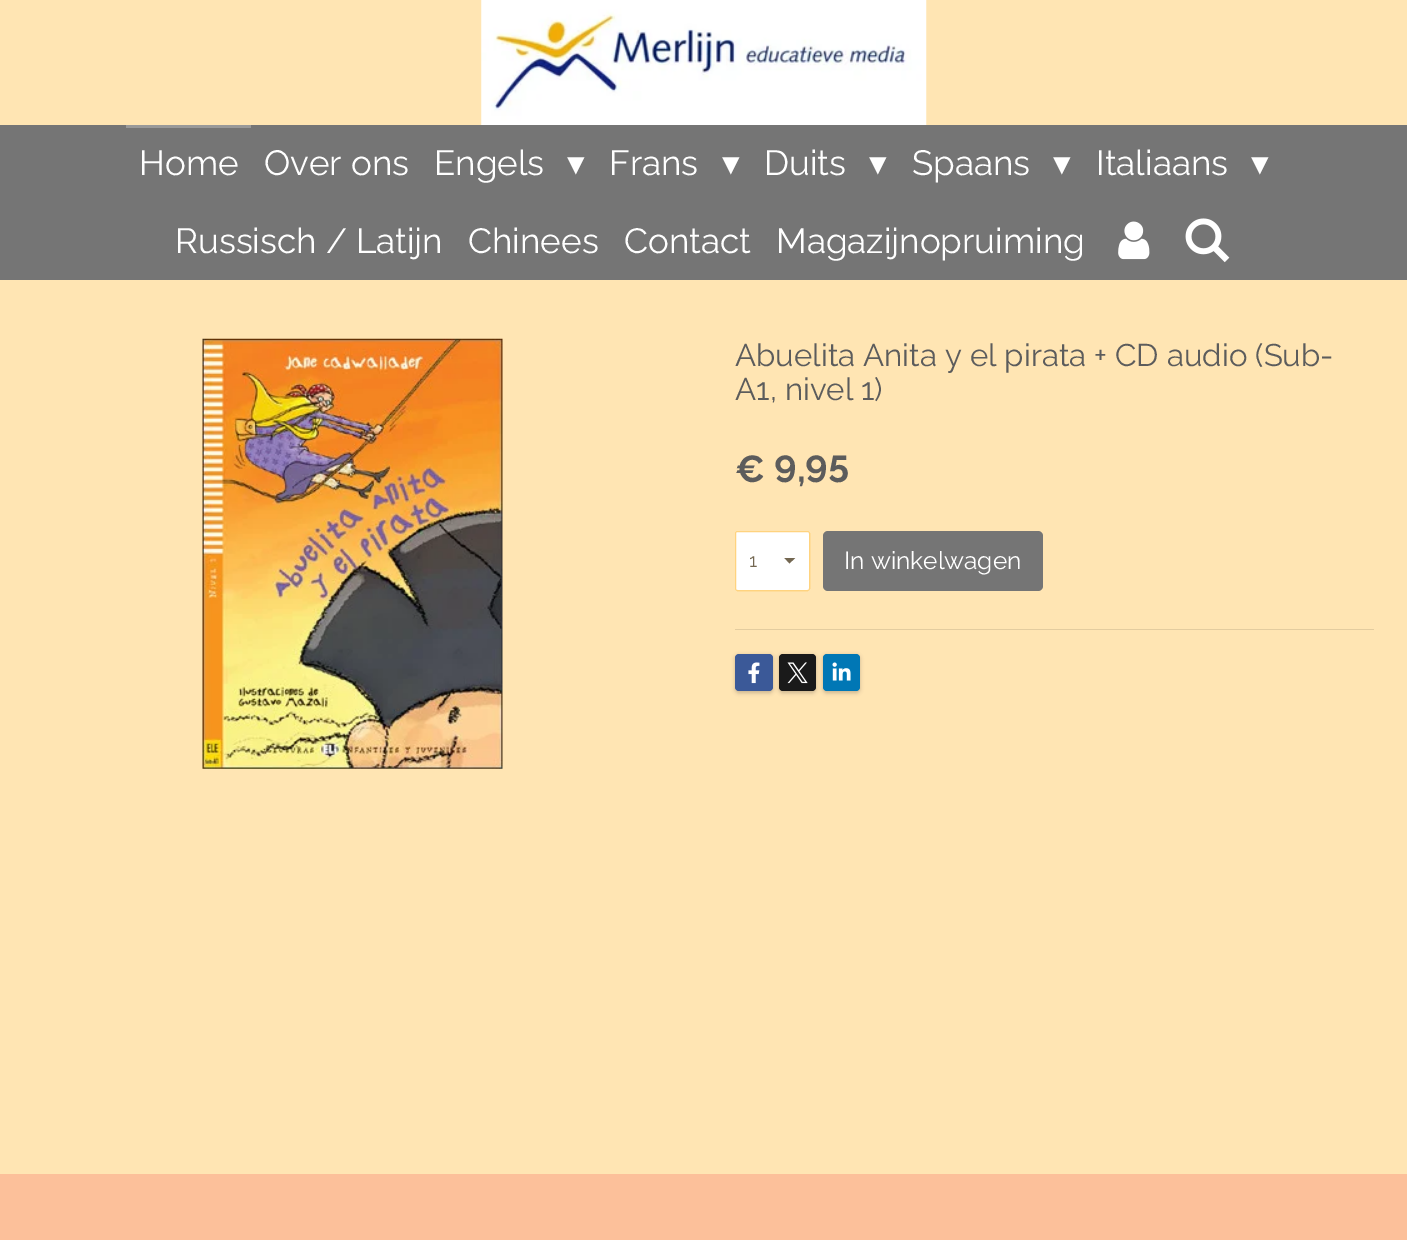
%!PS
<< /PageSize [1407 1240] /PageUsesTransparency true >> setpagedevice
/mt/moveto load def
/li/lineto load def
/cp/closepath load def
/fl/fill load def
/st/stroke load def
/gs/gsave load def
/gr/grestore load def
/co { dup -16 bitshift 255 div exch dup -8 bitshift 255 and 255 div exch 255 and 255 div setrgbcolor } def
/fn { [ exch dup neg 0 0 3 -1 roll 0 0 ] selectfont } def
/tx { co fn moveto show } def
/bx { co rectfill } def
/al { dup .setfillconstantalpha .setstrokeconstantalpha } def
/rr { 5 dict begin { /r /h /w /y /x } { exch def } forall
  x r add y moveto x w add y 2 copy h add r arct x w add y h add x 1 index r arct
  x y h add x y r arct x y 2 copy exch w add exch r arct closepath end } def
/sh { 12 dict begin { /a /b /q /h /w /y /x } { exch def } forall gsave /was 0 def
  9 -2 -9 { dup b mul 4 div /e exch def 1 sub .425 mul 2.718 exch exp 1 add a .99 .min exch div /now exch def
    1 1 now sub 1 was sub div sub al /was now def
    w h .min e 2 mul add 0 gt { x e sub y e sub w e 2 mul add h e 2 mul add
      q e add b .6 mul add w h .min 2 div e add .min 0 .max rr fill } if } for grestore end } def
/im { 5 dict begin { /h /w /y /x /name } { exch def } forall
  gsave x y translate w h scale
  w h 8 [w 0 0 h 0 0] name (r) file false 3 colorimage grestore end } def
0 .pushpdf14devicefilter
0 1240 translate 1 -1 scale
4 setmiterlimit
0 0 1407 1240 16#FFE5B3 bx
(media/1.raw) 481 0 446 125 im
0 125 1407 155 16#757575 bx
126 125 125 3 16#999999 bx
(media/2.raw) 1118 221 32 39 im
(media/3.raw) 1185 218 45 45 im
(media/4.raw) 202 338 301 431 im
16#FFFFFF co
735 531 75 60 2.5 rr fl
gs
784 558 12 7 rectclip
16#736751 co
789.5 563.5 mt 784 557.5 li 795.5 557.5 li cp fl
gr
0.5 al
16#FFA800 co
735.5 531.5 74 59 2 rr st
1 al
16#757575 co
823 531 220 60 5 rr fl
735 629 639 1 16#E3CC9F bx
16#000000 co
735 655 38 38 4 2 .2 sh
16#3B5998 co
735 654 38 37 4 rr fl
(media/5.raw) 748 662 12 22 im
16#000000 co
779 655 37 38 4 2 .2 sh
16#1A1A1A co
779 654 37 37 4 rr fl
(media/6.raw) 787 662 21 22 im
16#000000 co
823 655 37 38 4 2 .2 sh
16#0077B5 co
823 654 37 37 4 rr fl
(media/7.raw) 832 662 19 19 im
0 1174 1407 66 16#FCC09A bx
(Home) 139 175 /Raleway-Regular 35 16#FFFFFF tx
(Over ons) 264 175 /Raleway-Regular 35 16#FFFFFF tx
(Engels) 434 175 /Raleway-Regular 35 16#FFFFFF tx
(▾) 567 175 /DejaVuSans-Regular 35 16#FFFFFF tx
(Frans) 609 175 /Raleway-Regular 35 16#FFFFFF tx
(▾) 722 175 /DejaVuSans-Regular 35 16#FFFFFF tx
(Duits) 764 175 /Raleway-Regular 35 16#FFFFFF tx
(▾) 869 175 /DejaVuSans-Regular 35 16#FFFFFF tx
(Spaans) 912 175 /Raleway-Regular 35 16#FFFFFF tx
(▾) 1053 175 /DejaVuSans-Regular 35 16#FFFFFF tx
(Italiaans) 1096 175 /Raleway-Regular 35 16#FFFFFF tx
(▾) 1251 175 /DejaVuSans-Regular 35 16#FFFFFF tx
(Russisch / Latijn) 175 253 /Raleway-Regular 35 16#FFFFFF tx
(Chinees) 468 253 /Raleway-Regular 35 16#FFFFFF tx
(Contact) 624 253 /Raleway-Regular 35 16#FFFFFF tx
(Magazijnopruiming) 776 253 /Raleway-Regular 35 16#FFFFFF tx
(Abuelita Anita y el pirata + CD audio \(Sub-) 735 366 /Raleway-Regular 31.25 16#5C5C5C tx
(A1, nivel 1\)) 735 400 /Raleway-Regular 31.25 16#5C5C5C tx
(€ 9,95) 735 482 /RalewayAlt-Bold 37.5 16#5C5C5C tx
(1) 749 567 /Raleway-Regular 19 16#736751 tx
(In winkelwagen) 844 569 /Raleway-Regular 24.5 16#FFFFFF tx
.poppdf14devicefilter showpage
